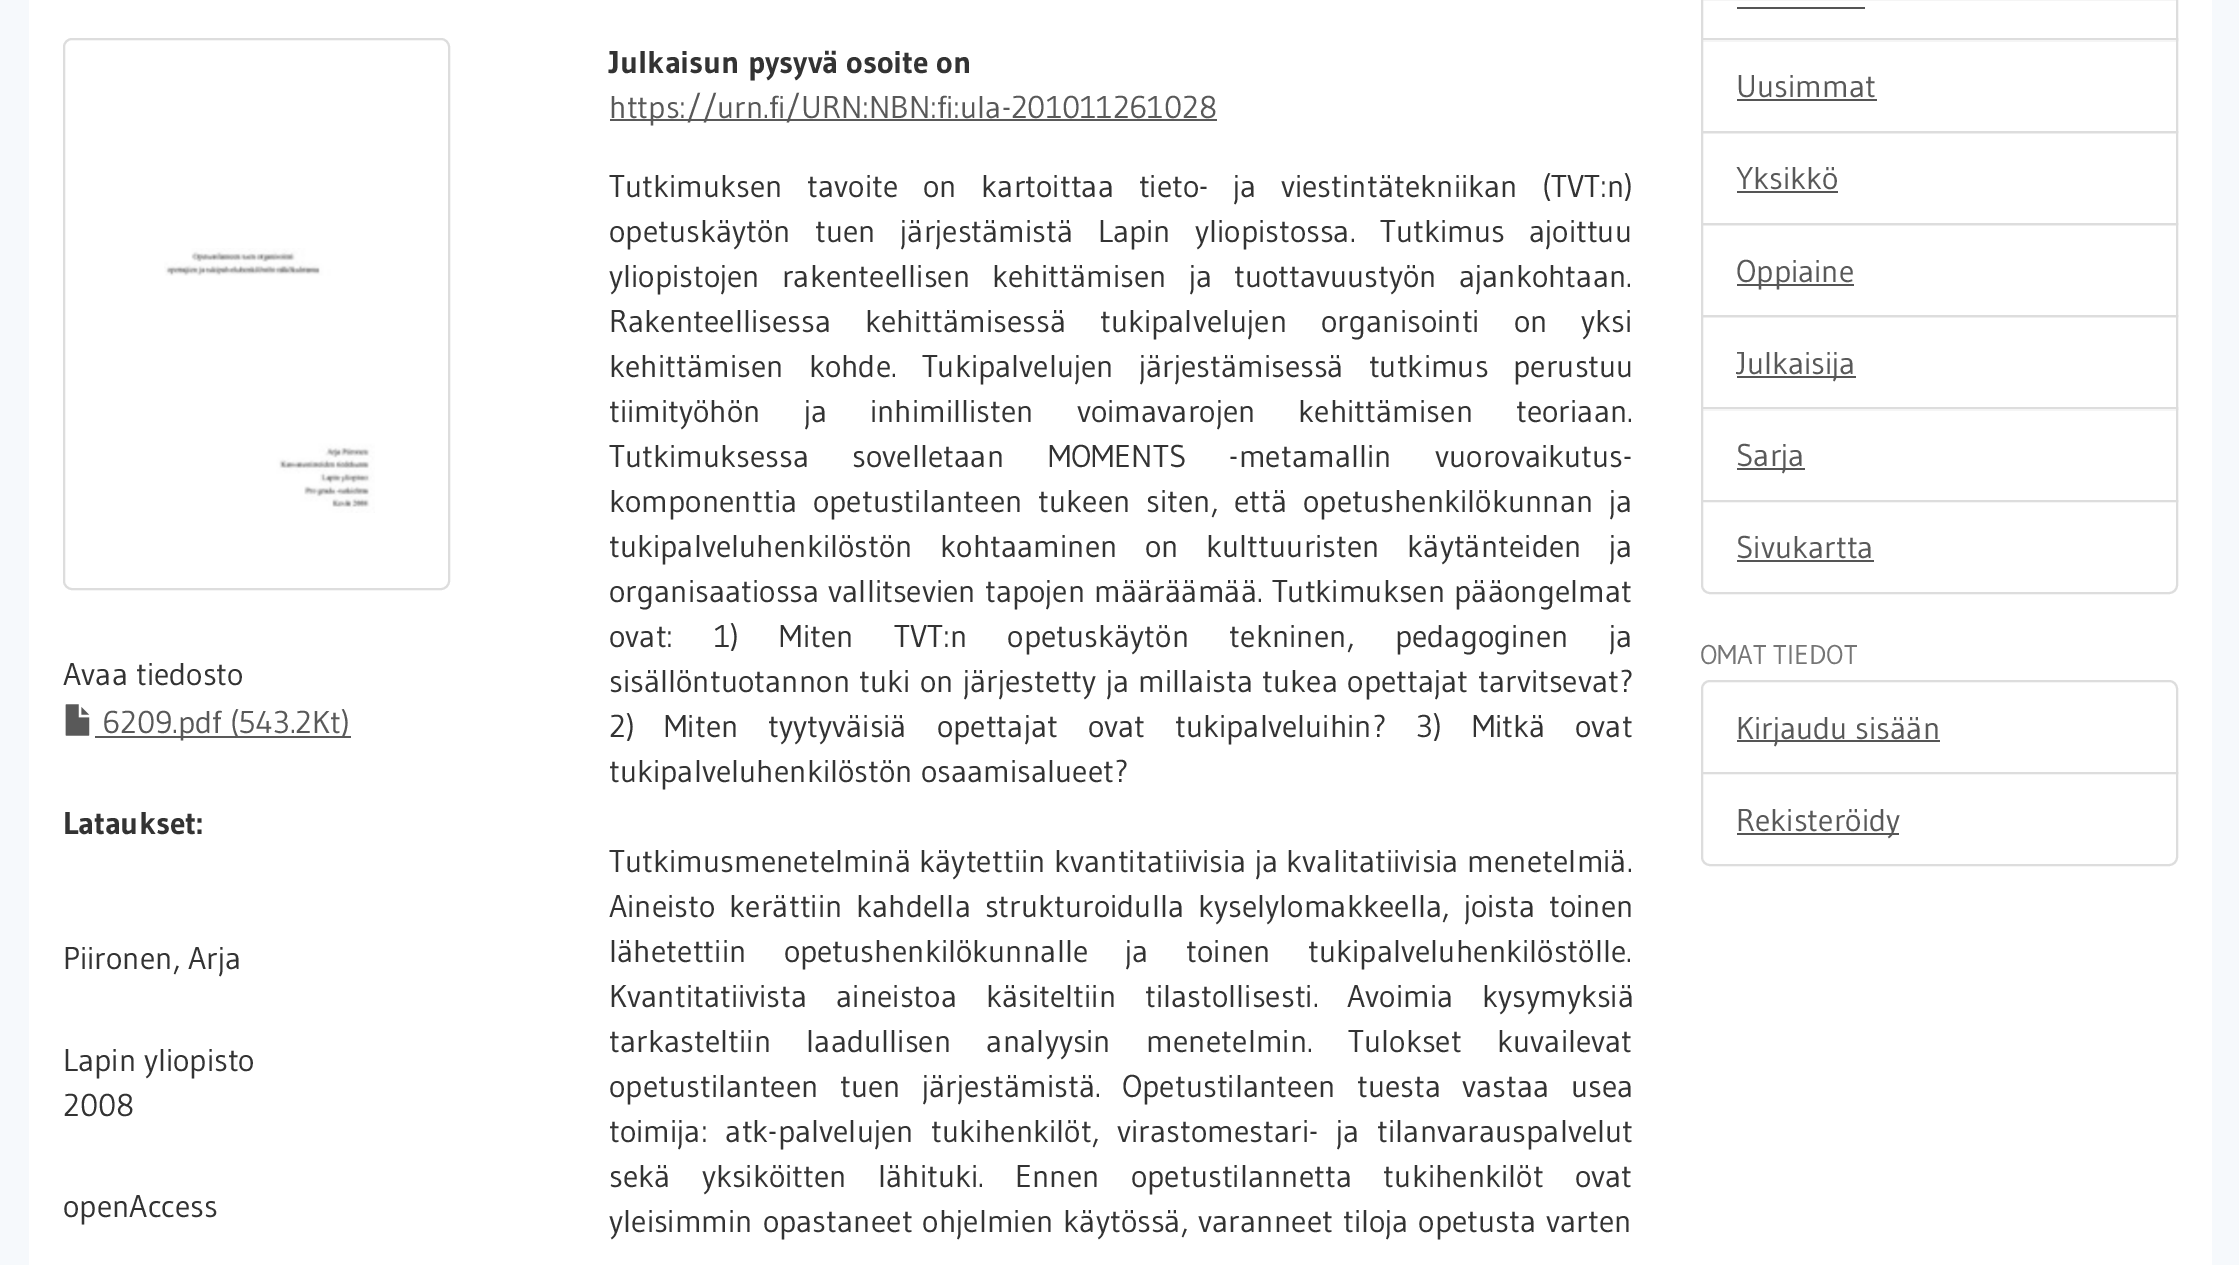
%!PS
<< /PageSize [2239 1265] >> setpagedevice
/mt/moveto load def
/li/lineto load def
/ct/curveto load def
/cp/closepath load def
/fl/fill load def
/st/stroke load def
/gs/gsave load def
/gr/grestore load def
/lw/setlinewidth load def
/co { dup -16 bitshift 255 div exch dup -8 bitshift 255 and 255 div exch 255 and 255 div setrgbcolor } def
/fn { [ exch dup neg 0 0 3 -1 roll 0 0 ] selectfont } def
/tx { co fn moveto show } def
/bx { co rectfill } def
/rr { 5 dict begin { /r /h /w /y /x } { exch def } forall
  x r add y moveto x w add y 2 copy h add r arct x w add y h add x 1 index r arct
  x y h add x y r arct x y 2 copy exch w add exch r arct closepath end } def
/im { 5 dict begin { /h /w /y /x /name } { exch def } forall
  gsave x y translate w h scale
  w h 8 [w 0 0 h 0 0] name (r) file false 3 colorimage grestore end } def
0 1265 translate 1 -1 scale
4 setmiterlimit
0 0 2239 1265 16#F6F9FC bx
29 0 2183 1265 16#FFFFFF bx
16#DDDDDD co
2 lw
64 39 385 550 8 rr st
(media/1.raw) 164 248 211 265 im
(media/2.raw) 65 704 25 32 im
95 736 256 2 16#595959 bx
610 119 607 2 16#595959 bx
16#DDDDDD co
1702 -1 475 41 rectstroke
1737 7 128 2 16#555555 bx
1703 40 473 1 16#FFFFFF bx
16#DDDDDD co
1702 39 475 93 rectstroke
1737 99 140 2 16#555555 bx
16#DDDDDD co
1702 132 475 92 rectstroke
1737 191 101 2 16#555555 bx
16#DDDDDD co
1702 224 475 92 rectstroke
1737 284 117 2 16#555555 bx
16#DDDDDD co
1702 316 475 93 rectstroke
1737 376 119 2 16#555555 bx
1703 409 473 1 16#FFFFFF bx
16#DDDDDD co
1702 408 475 93 rectstroke
1737 468 68 2 16#555555 bx
16#FFFFFF co
1702 501 mt 2177 501 li 2177 585 li 2177 589.5 2173.5 593 2169 593 ct 1710 593 li 1705.5 593 1702 589.5 1702 585 ct cp gs fl gr
16#DDDDDD co
st
1737 560 137 2 16#555555 bx
16#DDDDDD co
1710 681 mt 2169 681 li 2173.5 681 2177 684.5 2177 689 ct 2177 773 li 1702 773 li 1702 689 li 1702 684.5 1705.5 681 1710 681 ct cp st
1737 740 203 2 16#555555 bx
16#FFFFFF co
1702 773 mt 2177 773 li 2177 857 li 2177 861.5 2173.5 865 2169 865 ct 1710 865 li 1705.5 865 1702 861.5 1702 857 ct cp gs fl gr
16#DDDDDD co
st
1737 833 162 2 16#555555 bx
(Avaa tiedosto) 63 685 /Gudea-Regular 31.5 16#333333 tx
(6209.pdf \(543.2Kt\)) 102 733 /Gudea-Regular 31.5 16#595959 tx
(Lataukset:) 63 834 /Gudea-Bold 31.5 16#333333 tx
(Piironen, Arja) 63 969 /Gudea-Regular 31.5 16#333333 tx
(Lapin yliopisto) 63 1071 /Gudea-Regular 31.5 16#333333 tx
(2008) 63 1116 /Gudea-Regular 31.5 16#333333 tx
(openAccess) 63 1217 /Gudea-Regular 31.5 16#333333 tx
(Julkaisun pysyvä osoite on) 609 73 /Gudea-Bold 31.5 16#333333 tx
(https://urn.fi/URN:NBN:fi:ula-201011261028) 609 118 /Gudea-Regular 31.5 16#595959 tx
16#333333 co
609 197 mt 16.75 0 32 (Tutkimuksen tavoite on kartoittaa tieto- ja viestintätekniikan \(TVT:n\)) widthshow
609 242 mt 16.5 0 32 (opetuskäytön tuen järjestämistä Lapin yliopistossa. Tutkimus ajoittuu) widthshow
609 287 mt 14 0 32 (yliopistojen rakenteellisen kehittämisen ja tuottavuustyön ajankohtaan.) widthshow
609 332 mt 26 0 32 (Rakenteellisessa kehittämisessä tukipalvelujen organisointi on yksi) widthshow
609 377 mt 17 0 32 (kehittämisen kohde. Tukipalvelujen järjestämisessä tutkimus perustuu) widthshow
609 422 mt 35 0 32 (tiimityöhön ja inhimillisten voimavarojen kehittämisen teoriaan.) widthshow
609 467 mt 35.5 0 32 (Tutkimuksessa sovelletaan MOMENTS -metamallin vuorovaikutus-) widthshow
609 512 mt 7.75 0 32 (komponenttia opetustilanteen tukeen siten, että opetushenkilökunnan ja) widthshow
609 557 mt 19.5 0 32 (tukipalveluhenkilöstön kohtaaminen on kulttuuristen käytänteiden ja) widthshow
609 602 mt 1 0 32 (organisaatiossa vallitsevien tapojen määräämää. Tutkimuksen pääongelmat) widthshow
609 647 mt 32.5 0 32 (ovat: 1\) Miten TVT:n opetuskäytön tekninen, pedagoginen ja) widthshow
609 692 mt 1.5 0 32 (sisällöntuotannon tuki on järjestetty ja millaista tukea opettajat tarvitsevat?) widthshow
609 737 mt 22 0 32 (2\) Miten tyytyväisiä opettajat ovat tukipalveluihin? 3\) Mitkä ovat) widthshow
(tukipalveluhenkilöstön osaamisalueet?) 609 782 /Gudea-Regular 31.5 16#333333 tx
609 872 mt .5 0 32 (Tutkimusmenetelminä käytettiin kvantitatiivisia ja kvalitatiivisia menetelmiä.) widthshow
609 917 mt 6 0 32 (Aineisto kerättiin kahdella strukturoidulla kyselylomakkeella, joista toinen) widthshow
609 962 mt 29.5 0 32 (lähetettiin opetushenkilökunnalle ja toinen tukipalveluhenkilöstölle.) widthshow
609 1007 mt 21 0 32 (Kvantitatiivista aineistoa käsiteltiin tilastollisesti. Avoimia kysymyksiä) widthshow
609 1052 mt 27.5 0 32 (tarkasteltiin laadullisen analyysin menetelmin. Tulokset kuvailevat) widthshow
609 1097 mt 13.25 0 32 (opetustilanteen tuen järjestämistä. Opetustilanteen tuesta vastaa usea) widthshow
609 1142 mt 10 0 32 (toimija: atk-palvelujen tukihenkilöt, virastomestari- ja tilanvarauspalvelut) widthshow
609 1187 mt 23.25 0 32 (sekä yksiköitten lähituki. Ennen opetustilannetta tukihenkilöt ovat) widthshow
609 1232 mt 2 0 32 (yleisimmin opastaneet ohjelmien käytössä, varanneet tiloja opetusta varten) widthshow
(Uusimmat) 1736 97 /Gudea-Regular 31.5 16#595959 tx
(Yksikkö) 1736 189 /Gudea-Regular 31.5 16#595959 tx
(Oppiaine) 1736 282 /Gudea-Regular 31.5 16#595959 tx
(Julkaisija) 1736 374 /Gudea-Regular 31.5 16#595959 tx
(Sarja) 1736 466 /Gudea-Regular 31.5 16#595959 tx
(Sivukartta) 1736 558 /Gudea-Regular 31.5 16#595959 tx
(OMAT TIEDOT) 1700 664 /Gudea-Regular 27 16#757575 tx
(Kirjaudu sisään) 1736 739 /Gudea-Regular 31.5 16#595959 tx
(Rekisteröidy) 1736 831 /Gudea-Regular 31.5 16#595959 tx
showpage
